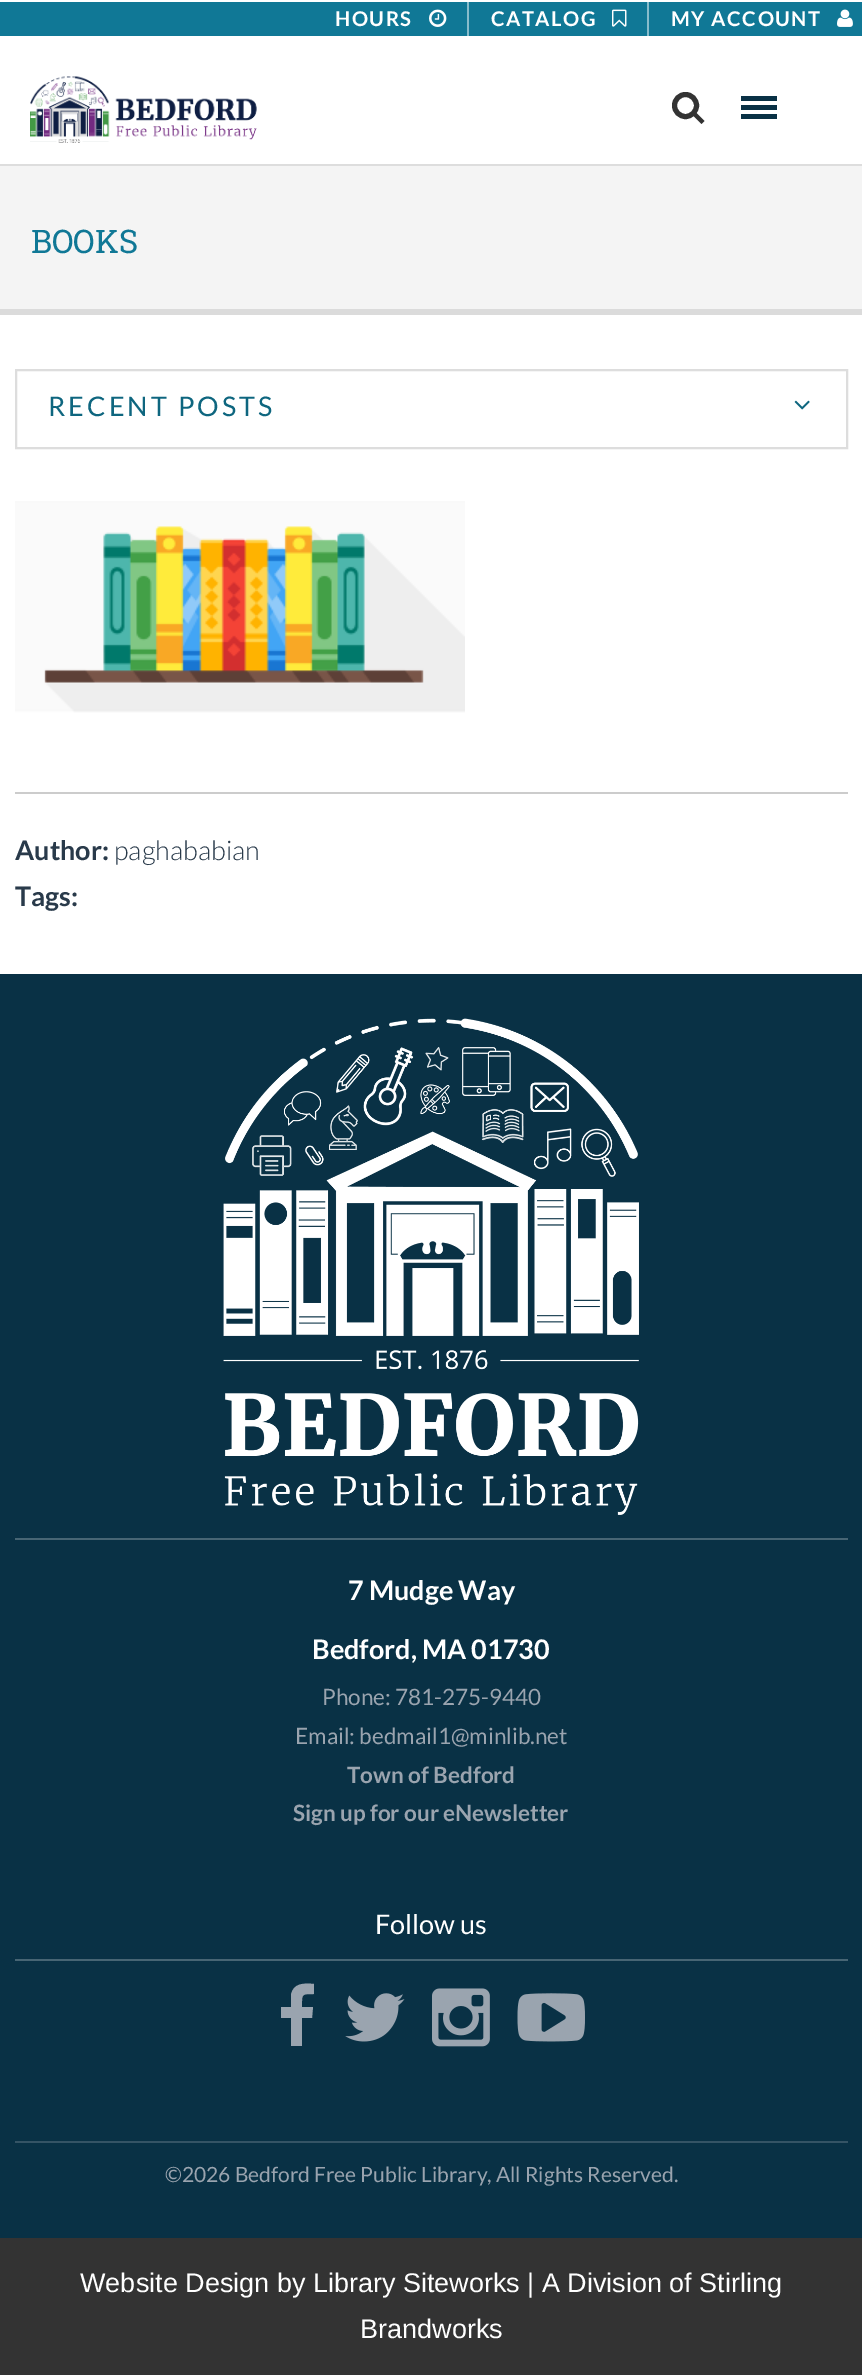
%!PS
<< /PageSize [862 2375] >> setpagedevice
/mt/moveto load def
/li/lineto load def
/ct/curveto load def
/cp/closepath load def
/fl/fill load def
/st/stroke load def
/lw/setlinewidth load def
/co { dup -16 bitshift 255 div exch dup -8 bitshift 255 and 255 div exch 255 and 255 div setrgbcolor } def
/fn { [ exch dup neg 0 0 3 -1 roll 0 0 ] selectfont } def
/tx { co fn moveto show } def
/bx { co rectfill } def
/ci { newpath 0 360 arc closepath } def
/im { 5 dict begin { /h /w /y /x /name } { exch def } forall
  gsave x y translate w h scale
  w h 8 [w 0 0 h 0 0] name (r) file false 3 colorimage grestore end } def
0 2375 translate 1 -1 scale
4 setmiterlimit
0 0 862 2375 16#FFFFFF bx
0 164 862 2 16#DDDDDD bx
0 2 862 34 16#107896 bx
(media/1.raw) 429 9 18 18 im
467 2 2 34 16#88BCCB bx
(media/2.raw) 612 9 15 18 im
647 2 2 34 16#88BCCB bx
(media/3.raw) 837 9 16 18 im
(media/4.raw) 30 76 227 67 im
16#333333 co
5 lw
685.5 105.5 11 ci st
696 112.5 mt 704.5 121 li 701.5 124 li 693 115.5 li cp fl
741 105 36 5 16#093145 bx
741 96 36 5 16#093145 bx
741 114 36 5 16#093145 bx
0 166 862 143 16#F4F4F4 bx
0 309 862 6 16#DBDBDB bx
16#DDDDDD co
2 lw
16 370 831 78 rectstroke
(media/5.raw) 794 400 16 10 im
(media/6.raw) 15 501 450 212 im
15 792 833 2 16#CCCCCC bx
0 974 862 1264 16#093145 bx
(media/7.raw) 223 1018 416 497 im
15 1538 833 2 16#476574 bx
15 1959 833 2 16#476574 bx
16#9AA4AF co
314 1984 mt 314 1994 li 301 1994 302 1994 302 2007 ct 313 2007 li 312 2018 li 302 2018 li 302 2046 li 291 2046 li 291 2018 li 281 2018 li 281 2007 li 291 2007 li 291 1995 li 293 1983 304 1983 314 1984 ct cp fl
(media/8.raw) 345 1993 60 49 im
(media/9.raw) 432 1988 58 59 im
(media/10.raw) 517 1993 68 49 im
15 2141 833 2 16#355465 bx
0 2238 862 137 16#333333 bx
/Lato-Bold 20.25 fn
16#FFFFFF co
335 26 mt 1.5 0 (HOURS) ashow
491 26 mt 1.5 0 (CATALOG) ashow
671 26 mt 1.5 0 (MY ACCOUNT) ashow
(BOOKS) 31 253 /RobotoSlab-Regular 32.5 16#107896 tx
/Lato-Regular 27 fn
16#0E667F co
48 416 mt 3 0 (RECENT POSTS) ashow
(Author:) 15 860 /Lato-Bold 27 16#293A4A tx
(paghababian) 114 860 /Lato-Light 27 16#293A4A tx
(Tags:) 15 906 /Lato-Bold 27 16#293A4A tx
(7 Mudge Way) 348 1600 /Lato-Bold 27 16#FFFFFF tx
(Bedford, MA 01730) 312 1659 /Lato-Bold 27 16#FFFFFF tx
(Phone: 781-275-9440) 322 1705 /Lato-Regular 22.5 16#9AA4AF tx
(Email: bedmail1@minlib.net) 295 1744 /Lato-Regular 22.5 16#9AA4AF tx
(Town of Bedford) 347 1783 /Lato-Bold 22.5 16#9AA4AF tx
(Sign up for our eNewsletter) 293 1821 /Lato-Bold 22.5 16#9AA4AF tx
(Follow us) 375 1934 /Lato-Regular 27 16#FFFFFF tx
(©2026 Bedford Free Public Library, All Rights Reserved.) 165 2182 /Lato-Regular 21 16#9AA4AF tx
(Website Design by Library Siteworks | A Division of Stirling) 80 2292 /LiberationSans-Regular 27 16#FFFFFF tx
(Brandworks) 360 2338 /LiberationSans-Regular 27 16#FFFFFF tx
showpage
